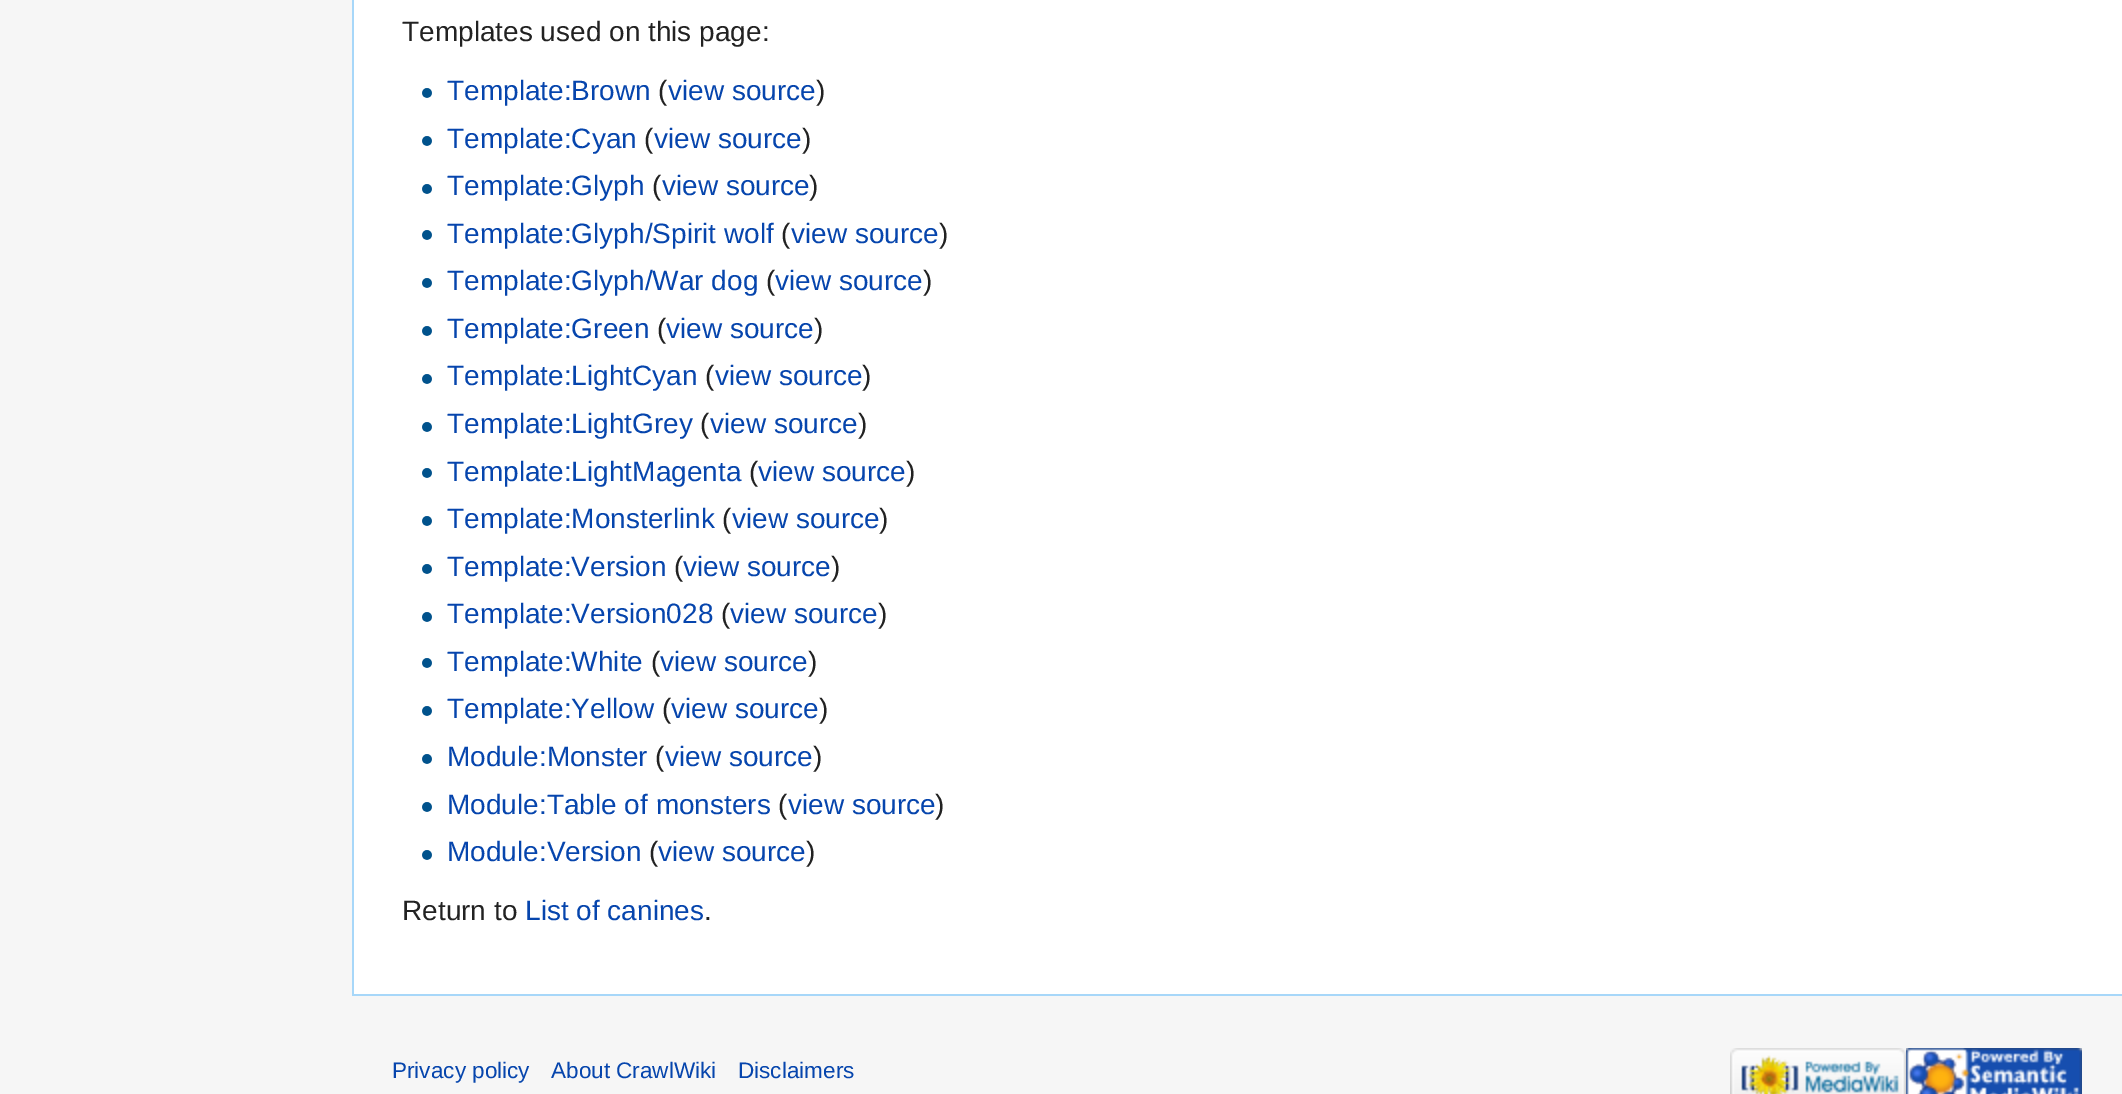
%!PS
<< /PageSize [2122 1094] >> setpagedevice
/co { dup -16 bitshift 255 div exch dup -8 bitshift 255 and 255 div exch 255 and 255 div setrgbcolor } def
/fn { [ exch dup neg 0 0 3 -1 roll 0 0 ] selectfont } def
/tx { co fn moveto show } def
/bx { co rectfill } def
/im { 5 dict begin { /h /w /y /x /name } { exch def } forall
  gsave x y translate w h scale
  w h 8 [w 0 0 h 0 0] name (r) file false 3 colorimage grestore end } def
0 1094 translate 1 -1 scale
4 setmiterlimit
0 0 2122 1094 16#F6F6F6 bx
354 0 1768 994 16#FFFFFF bx
352 994 1770 2 16#A7D7F9 bx
352 0 2 996 16#A7D7F9 bx
(media/1.raw) 422 88 10 10 im
(media/1.raw) 422 136 10 10 im
(media/1.raw) 422 184 10 10 im
(media/1.raw) 422 230 10 10 im
(media/1.raw) 422 278 10 10 im
(media/1.raw) 422 326 10 10 im
(media/1.raw) 422 374 10 10 im
(media/1.raw) 422 422 10 10 im
(media/1.raw) 422 468 10 10 im
(media/1.raw) 422 516 10 10 im
(media/1.raw) 422 564 10 10 im
(media/2.raw) 422 612 10 10 im
(media/1.raw) 422 658 10 10 im
(media/1.raw) 422 706 10 10 im
(media/1.raw) 422 754 10 10 im
(media/1.raw) 422 802 10 10 im
(media/1.raw) 422 850 10 10 im
(media/3.raw) 1730 1048 176 46 im
(media/4.raw) 1906 1048 176 46 im
(Templates used on this page:) 402 41 /LiberationSans-Regular 28 16#222222 tx
(Template:Brown) 447 100 /LiberationSans-Regular 28 16#0645AD tx
(\() 658 100 /LiberationSans-Regular 28 16#222222 tx
(view source) 668 100 /LiberationSans-Regular 28 16#0645AD tx
(\)) 816 100 /LiberationSans-Regular 28 16#222222 tx
(Template:Cyan) 447 148 /LiberationSans-Regular 28 16#0645AD tx
(\() 644 148 /LiberationSans-Regular 28 16#222222 tx
(view source) 654 148 /LiberationSans-Regular 28 16#0645AD tx
(\)) 802 148 /LiberationSans-Regular 28 16#222222 tx
(Template:Glyph) 447 195 /LiberationSans-Regular 28 16#0645AD tx
(\() 652 195 /LiberationSans-Regular 28 16#222222 tx
(view source) 662 195 /LiberationSans-Regular 28 16#0645AD tx
(\)) 809 195 /LiberationSans-Regular 28 16#222222 tx
(Template:Glyph/Spirit wolf) 447 243 /LiberationSans-Regular 28 16#0645AD tx
(\() 781 243 /LiberationSans-Regular 28 16#222222 tx
(view source) 791 243 /LiberationSans-Regular 28 16#0645AD tx
(\)) 939 243 /LiberationSans-Regular 28 16#222222 tx
(Template:Glyph/War dog) 447 290 /LiberationSans-Regular 28 16#0645AD tx
(\() 766 290 /LiberationSans-Regular 28 16#222222 tx
(view source) 775 290 /LiberationSans-Regular 28 16#0645AD tx
(\)) 923 290 /LiberationSans-Regular 28 16#222222 tx
(Template:Green) 447 338 /LiberationSans-Regular 28 16#0645AD tx
(\() 657 338 /LiberationSans-Regular 28 16#222222 tx
(view source) 666 338 /LiberationSans-Regular 28 16#0645AD tx
(\)) 814 338 /LiberationSans-Regular 28 16#222222 tx
(Template:LightCyan) 447 385 /LiberationSans-Regular 28 16#0645AD tx
(\() 705 385 /LiberationSans-Regular 28 16#222222 tx
(view source) 715 385 /LiberationSans-Regular 28 16#0645AD tx
(\)) 862 385 /LiberationSans-Regular 28 16#222222 tx
(Template:LightGrey) 447 433 /LiberationSans-Regular 28 16#0645AD tx
(\() 700 433 /LiberationSans-Regular 28 16#222222 tx
(view source) 710 433 /LiberationSans-Regular 28 16#0645AD tx
(\)) 858 433 /LiberationSans-Regular 28 16#222222 tx
(Template:LightMagenta) 447 481 /LiberationSans-Regular 28 16#0645AD tx
(\() 749 481 /LiberationSans-Regular 28 16#222222 tx
(view source) 758 481 /LiberationSans-Regular 28 16#0645AD tx
(\)) 906 481 /LiberationSans-Regular 28 16#222222 tx
(Template:Monsterlink) 447 528 /LiberationSans-Regular 28 16#0645AD tx
(\() 722 528 /LiberationSans-Regular 28 16#222222 tx
(view source) 732 528 /LiberationSans-Regular 28 16#0645AD tx
(\)) 879 528 /LiberationSans-Regular 28 16#222222 tx
(Template:Version) 447 576 /LiberationSans-Regular 28 16#0645AD tx
(\() 674 576 /LiberationSans-Regular 28 16#222222 tx
(view source) 683 576 /LiberationSans-Regular 28 16#0645AD tx
(\)) 831 576 /LiberationSans-Regular 28 16#222222 tx
(Template:Version028) 447 623 /LiberationSans-Regular 28 16#0645AD tx
(\() 721 623 /LiberationSans-Regular 28 16#222222 tx
(view source) 730 623 /LiberationSans-Regular 28 16#0645AD tx
(\)) 878 623 /LiberationSans-Regular 28 16#222222 tx
(Template:White) 447 671 /LiberationSans-Regular 28 16#0645AD tx
(\() 651 671 /LiberationSans-Regular 28 16#222222 tx
(view source) 660 671 /LiberationSans-Regular 28 16#0645AD tx
(\)) 808 671 /LiberationSans-Regular 28 16#222222 tx
(Template:Yellow) 447 718 /LiberationSans-Regular 28 16#0645AD tx
(\() 662 718 /LiberationSans-Regular 28 16#222222 tx
(view source) 671 718 /LiberationSans-Regular 28 16#0645AD tx
(\)) 819 718 /LiberationSans-Regular 28 16#222222 tx
(Module:Monster) 447 766 /LiberationSans-Regular 28 16#0645AD tx
(\() 655 766 /LiberationSans-Regular 28 16#222222 tx
(view source) 665 766 /LiberationSans-Regular 28 16#0645AD tx
(\)) 813 766 /LiberationSans-Regular 28 16#222222 tx
(Module:Table of monsters) 447 814 /LiberationSans-Regular 28 16#0645AD tx
(\() 778 814 /LiberationSans-Regular 28 16#222222 tx
(view source) 788 814 /LiberationSans-Regular 28 16#0645AD tx
(\)) 935 814 /LiberationSans-Regular 28 16#222222 tx
(Module:Version) 447 861 /LiberationSans-Regular 28 16#0645AD tx
(\() 649 861 /LiberationSans-Regular 28 16#222222 tx
(view source) 658 861 /LiberationSans-Regular 28 16#0645AD tx
(\)) 806 861 /LiberationSans-Regular 28 16#222222 tx
(Return to) 402 920 /LiberationSans-Regular 28 16#222222 tx
(List of canines) 525 920 /LiberationSans-Regular 28 16#0645AD tx
(.) 704 920 /LiberationSans-Regular 28 16#222222 tx
(Privacy policy) 392 1078 /LiberationSans-Regular 22.5 16#0645AD tx
(About CrawlWiki) 551 1078 /LiberationSans-Regular 22.5 16#0645AD tx
(Disclaimers) 738 1078 /LiberationSans-Regular 22.5 16#0645AD tx
showpage
